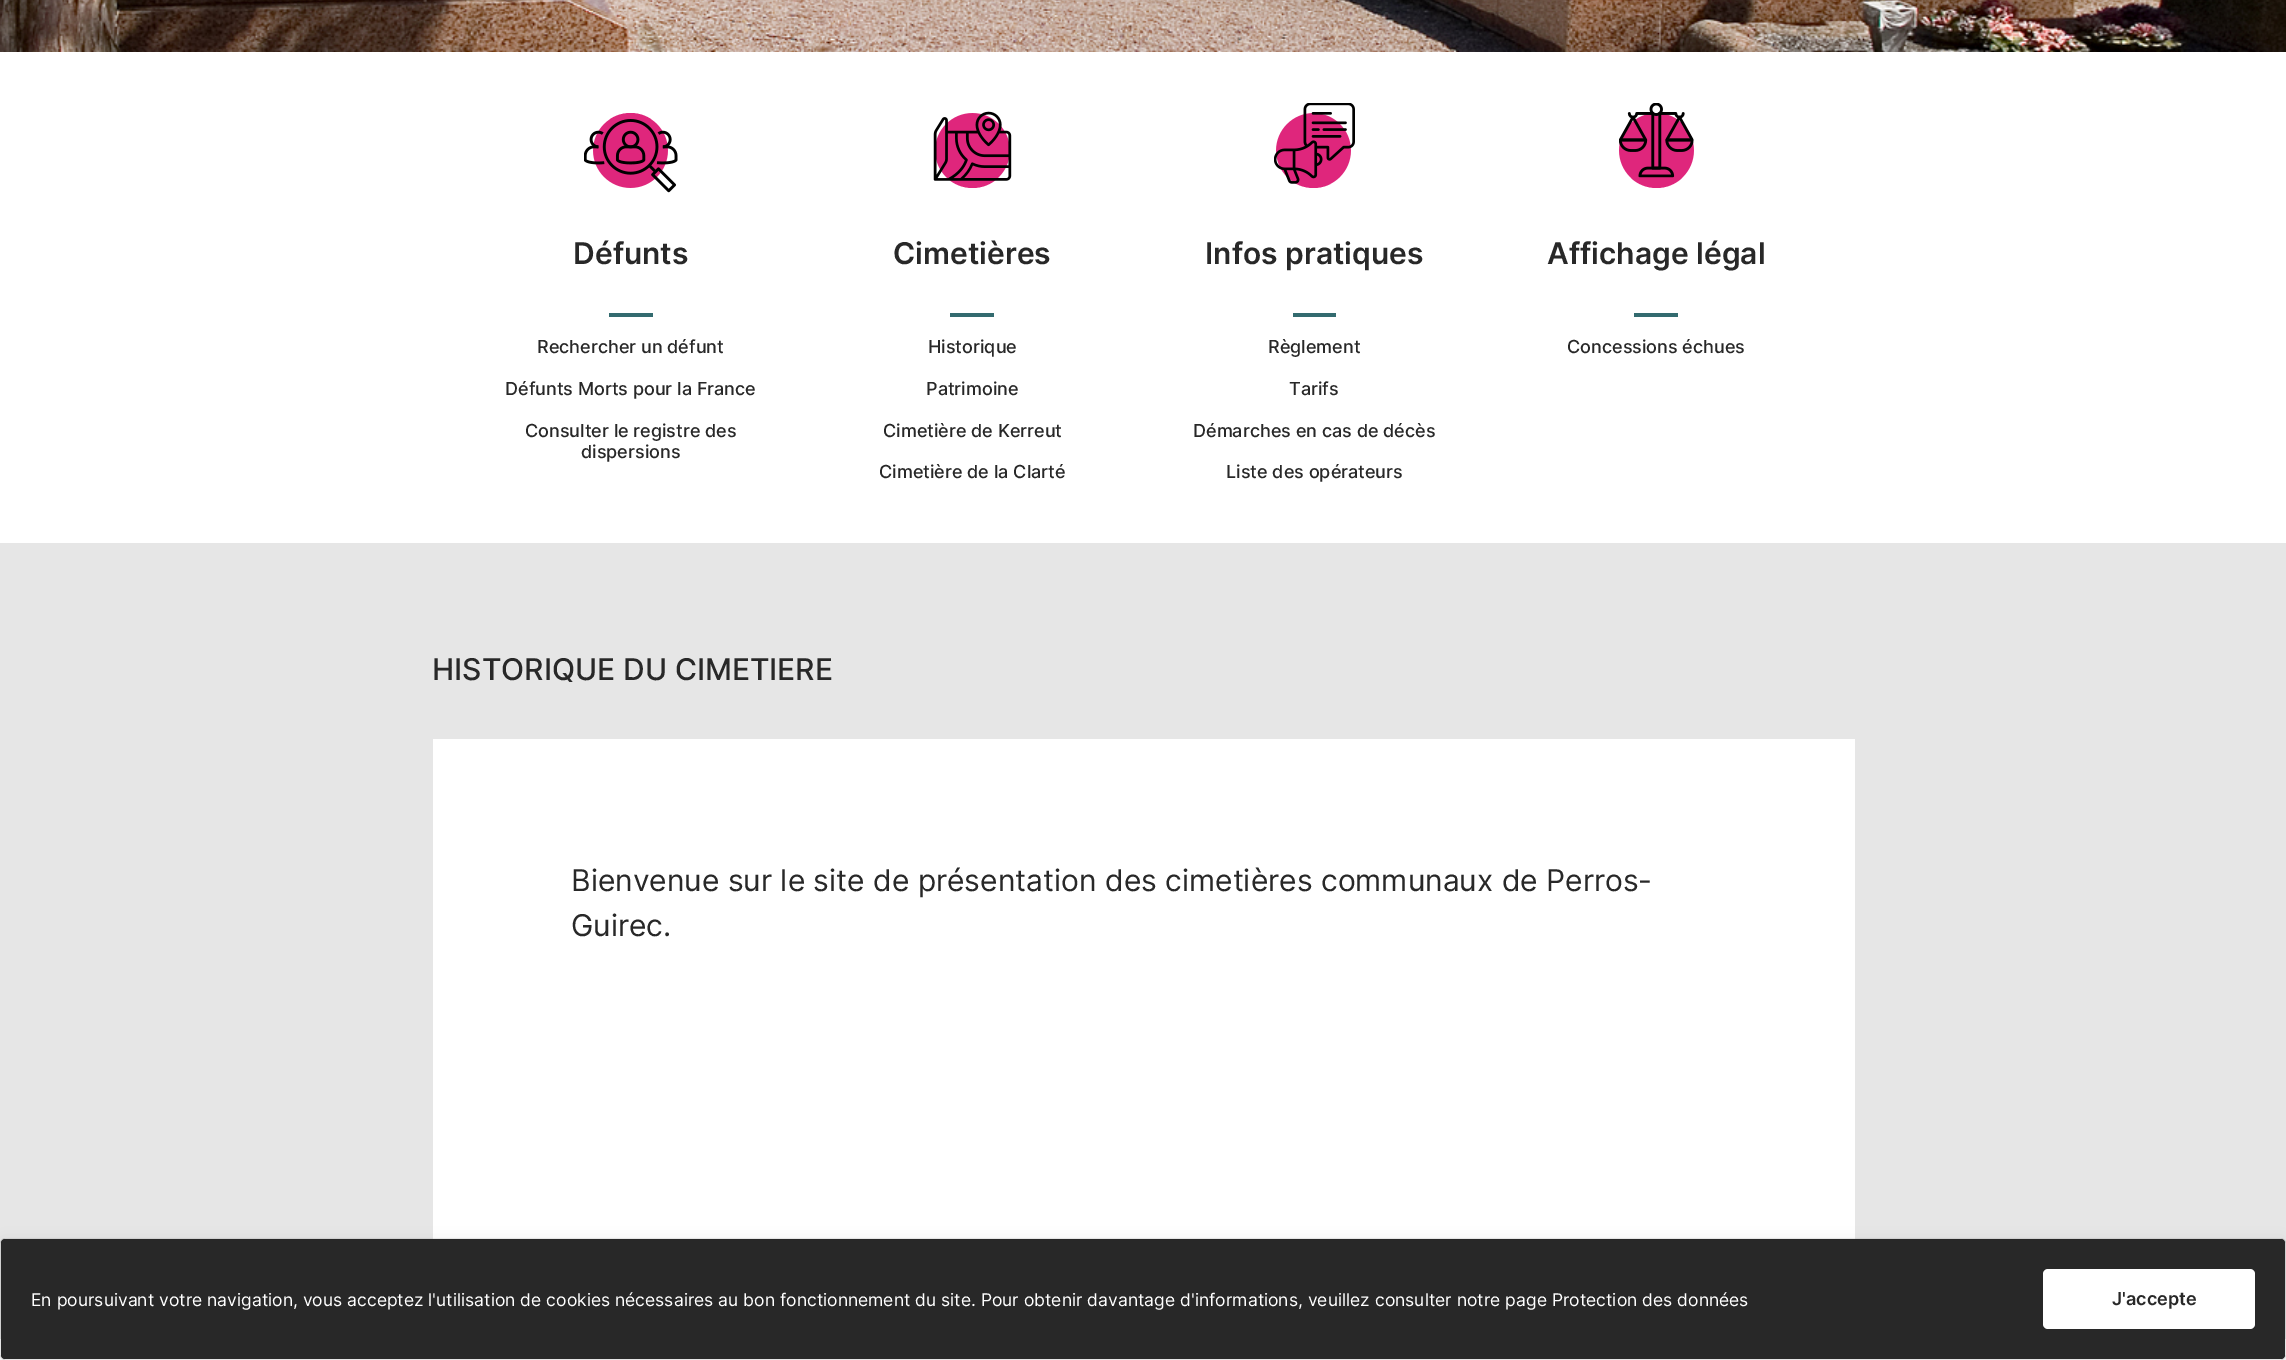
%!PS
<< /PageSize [2286 1360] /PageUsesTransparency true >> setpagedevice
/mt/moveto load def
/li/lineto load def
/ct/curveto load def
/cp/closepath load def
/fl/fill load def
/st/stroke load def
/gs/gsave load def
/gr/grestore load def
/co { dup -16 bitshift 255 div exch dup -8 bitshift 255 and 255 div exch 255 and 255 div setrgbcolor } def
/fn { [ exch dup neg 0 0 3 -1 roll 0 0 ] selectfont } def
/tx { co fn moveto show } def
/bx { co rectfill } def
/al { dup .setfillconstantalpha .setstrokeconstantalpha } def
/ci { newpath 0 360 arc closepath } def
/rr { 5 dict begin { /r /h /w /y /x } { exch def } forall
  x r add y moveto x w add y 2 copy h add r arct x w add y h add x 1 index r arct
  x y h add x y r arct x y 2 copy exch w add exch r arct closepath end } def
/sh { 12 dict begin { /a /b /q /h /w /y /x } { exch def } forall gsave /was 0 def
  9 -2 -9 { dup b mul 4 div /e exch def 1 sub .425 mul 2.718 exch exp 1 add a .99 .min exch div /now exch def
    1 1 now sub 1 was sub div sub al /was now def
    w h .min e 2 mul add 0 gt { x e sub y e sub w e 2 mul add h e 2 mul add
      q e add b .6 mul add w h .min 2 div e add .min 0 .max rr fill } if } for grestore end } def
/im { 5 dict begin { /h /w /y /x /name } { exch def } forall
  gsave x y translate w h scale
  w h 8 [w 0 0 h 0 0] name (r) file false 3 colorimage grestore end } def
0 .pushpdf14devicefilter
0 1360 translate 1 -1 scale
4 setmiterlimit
0 0 2286 1360 16#FFFFFF bx
(media/1.raw) 0 0 2286 52 im
16#DF267C co
630.5 150.5 37.5 ci fl
(media/2.raw) 584 119 94 74 im
609 313 44 4 16#336B6F bx
16#DF267C co
972.5 150.5 37.5 ci fl
(media/3.raw) 933 111 79 70 im
950 313 44 4 16#336B6F bx
16#DF267C co
1313.5 150.5 37.5 ci fl
(media/4.raw) 1274 103 81 81 im
1293 313 43 4 16#336B6F bx
16#DF267C co
1656.5 150.5 37.5 ci fl
(media/5.raw) 1619 103 75 75 im
1634 313 44 4 16#336B6F bx
0 543 2286 796 16#E6E6E6 bx
433 739 1422 500 16#FFFFFF bx
gs
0 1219 mt 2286 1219 li 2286 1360 li 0 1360 li cp 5 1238 mt 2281 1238 li 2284 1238 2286 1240 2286 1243 ct 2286 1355 li 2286 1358 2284 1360 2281 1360 ct 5 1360 li 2 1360 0 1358 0 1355 ct 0 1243 li 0 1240 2 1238 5 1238 ct cp eoclip newpath
16#000000 co
0 1243 2286 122 5 7.5 .1 sh
gr
16#282828 co
1 1239 2284 120 4 rr fl
0.1 al
16#000000 co
.5 1238.5 2285 121 4.5 rr st
1 al
16#FFFFFF co
2043 1269 212 60 5 rr fl
(Défunts) 573 264 /Inter-SemiBold 30 16#282828 tx
(Rechercher un défunt) 537 353 /Inter-Medium 18 16#282828 tx
(Défunts Morts pour la France) 505 395 /Inter-Medium 18 16#282828 tx
(Consulter le registre des) 525 437 /Inter-Medium 18 16#282828 tx
(dispersions) 581 458 /Inter-Medium 18 16#282828 tx
(Cimetières) 893 264 /Inter-SemiBold 30 16#282828 tx
(Historique) 928 353 /Inter-Medium 18 16#282828 tx
(Patrimoine) 926 395 /Inter-Medium 18 16#282828 tx
(Cimetière de Kerreut) 883 437 /Inter-Medium 18 16#282828 tx
(Cimetière de la Clarté) 879 478 /Inter-Medium 18 16#282828 tx
(Infos pratiques) 1205 264 /Inter-SemiBold 30 16#282828 tx
(Règlement) 1268 353 /Inter-Medium 18 16#282828 tx
(Tarifs) 1289 395 /Inter-Medium 18 16#282828 tx
(Démarches en cas de décès) 1193 437 /Inter-Medium 18 16#282828 tx
(Liste des opérateurs) 1226 478 /Inter-Medium 18 16#282828 tx
(Affichage légal) 1547 264 /Inter-SemiBold 30 16#282828 tx
(Concessions échues) 1567 353 /Inter-Medium 18 16#282828 tx
(HISTORIQUE DU CIMETIERE) 432 680 /Inter-Medium 30 16#282828 tx
(Bienvenue sur le site de présentation des cimetières communaux de Perros-) 571 891 /Inter-Regular 30 16#282828 tx
(Guirec.) 571 936 /Inter-Regular 30 16#282828 tx
(En poursuivant votre navigation, vous acceptez l'utilisation de cookies nécessaires au bon fonctionnement du site. Pour obtenir davantage d'informations, veuillez consulter notre page Protection des données) 31 1306 /Inter-Regular 17.5 16#FFFFFF tx
(J'accepte) 2112 1305 /Inter-SemiBold 18 16#282828 tx
.poppdf14devicefilter showpage
